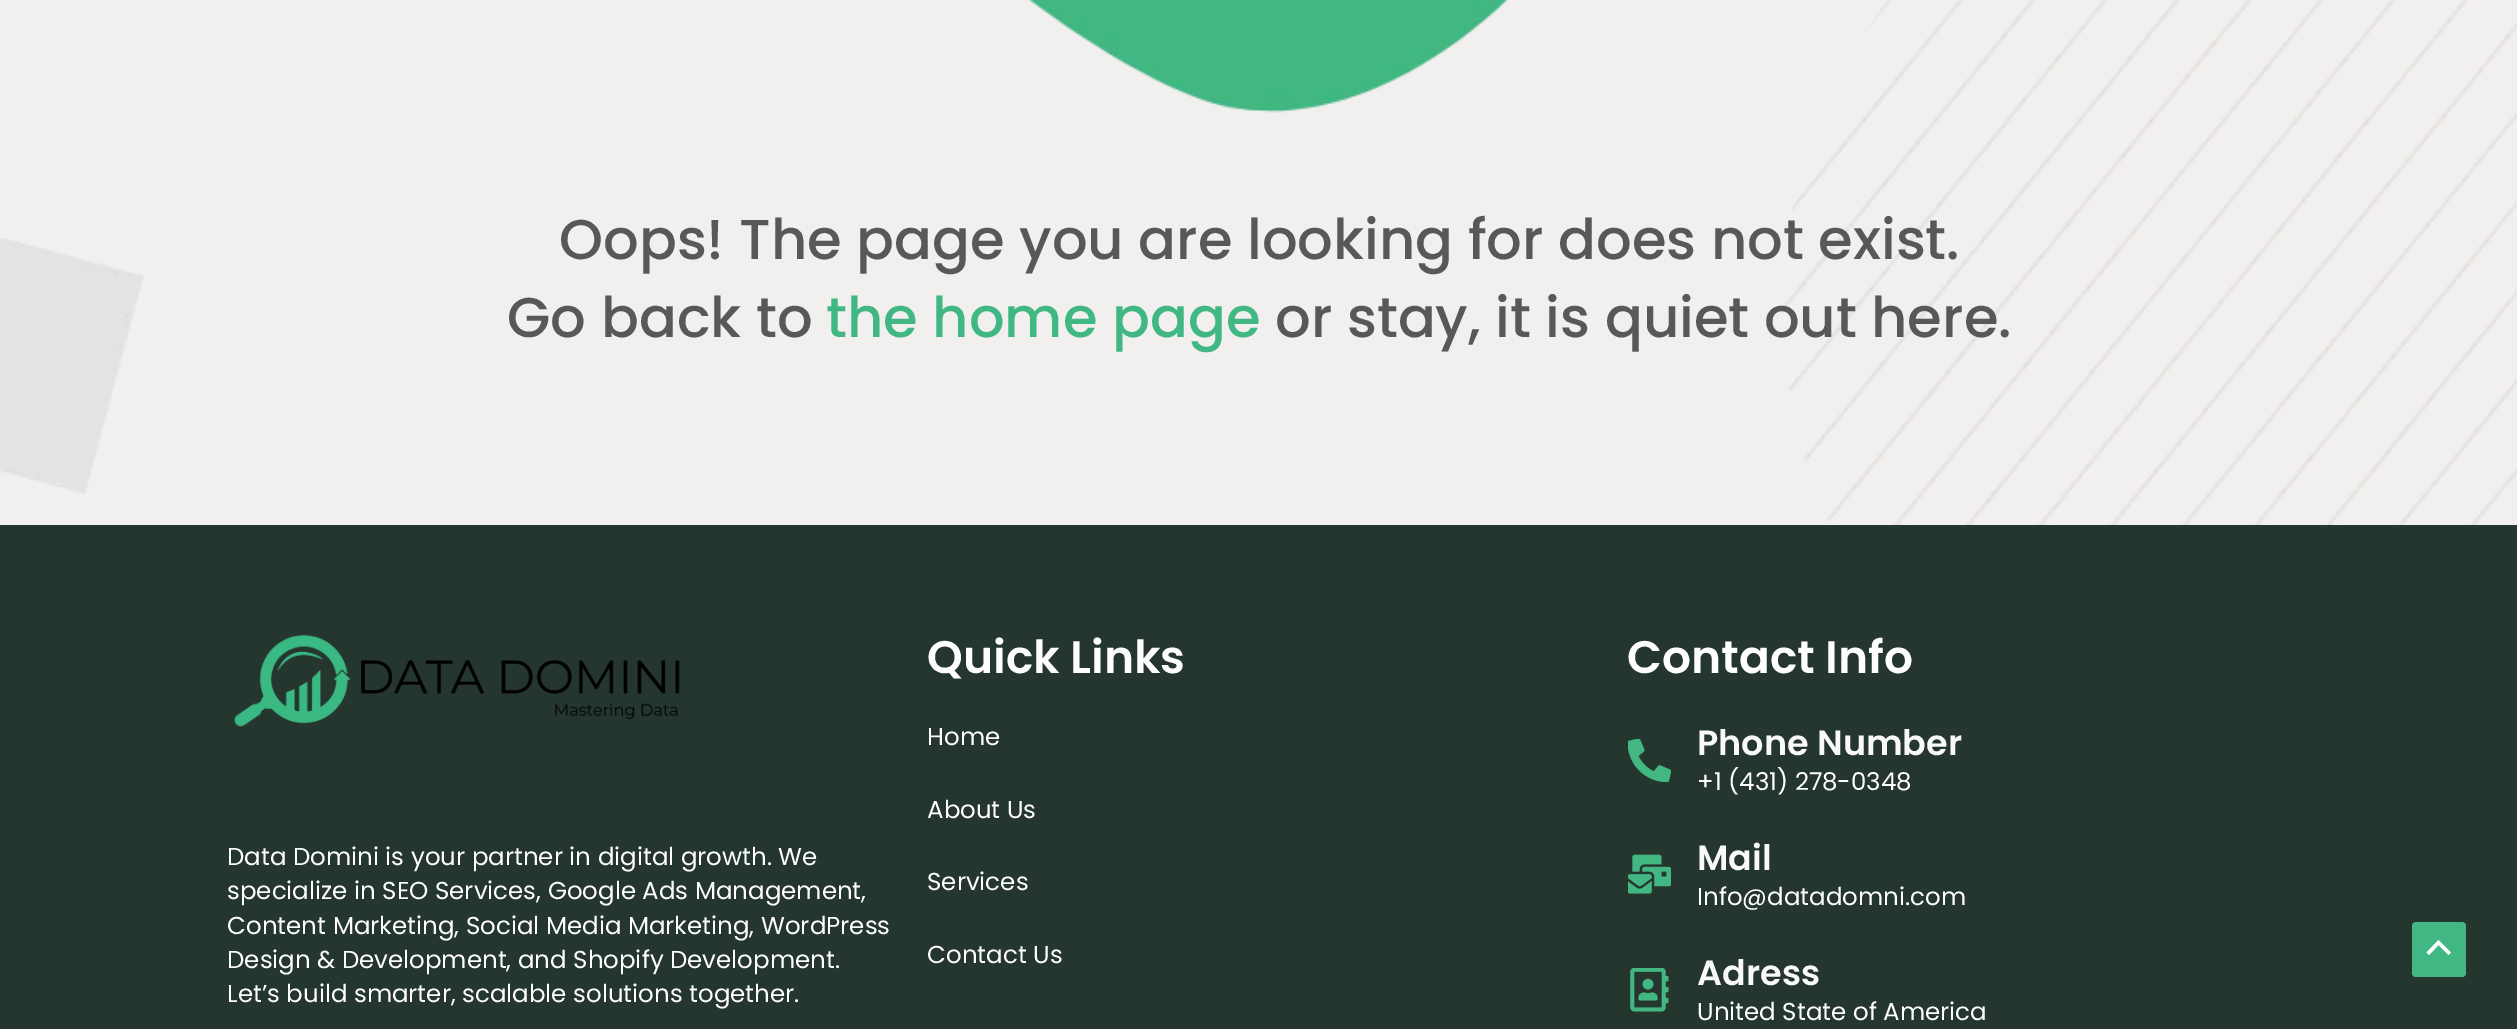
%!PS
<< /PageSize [2517 1029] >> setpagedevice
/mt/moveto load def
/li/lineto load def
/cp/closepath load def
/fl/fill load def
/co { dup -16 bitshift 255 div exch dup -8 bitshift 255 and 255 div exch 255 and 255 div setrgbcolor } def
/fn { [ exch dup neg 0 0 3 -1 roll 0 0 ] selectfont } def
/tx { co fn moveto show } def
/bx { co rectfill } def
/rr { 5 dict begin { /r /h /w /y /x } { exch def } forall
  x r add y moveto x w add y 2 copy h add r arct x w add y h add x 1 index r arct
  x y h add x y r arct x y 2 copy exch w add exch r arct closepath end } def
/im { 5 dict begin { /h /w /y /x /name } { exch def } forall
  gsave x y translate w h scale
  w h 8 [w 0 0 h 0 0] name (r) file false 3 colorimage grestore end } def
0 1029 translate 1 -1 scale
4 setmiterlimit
0 0 2517 1029 16#F2EFEF bx
(media/1.raw) 1781 0 736 525 im
(media/2.raw) 1028 0 481 113 im
(media/3.raw) 0 237 144 257 im
0 525 2517 504 16#25362E bx
(media/4.raw) 234 634 446 93 im
(media/5.raw) 1628 739 43 43 im
(media/6.raw) 1628 854 43 40 im
(media/7.raw) 1630 968 39 44 im
16#41B883 co
2412 922 54 55 4 rr fl
16#FFFFFF co
2451 952.5 mt 2438.5 940 li 2426.5 952.5 li 2429 955 li 2438.5 945 li 2448.5 955 li cp fl
(Oops! The page you are looking for does not exist.) 559 259 /Poppins-Medium 56 16#585858 tx
(Go back to) 507 337 /Poppins-Medium 56 16#585858 tx
(the home page) 826 337 /Poppins-Medium 56 16#41B883 tx
(or stay, it is quiet out here.) 1275 337 /Poppins-Medium 56 16#585858 tx
(Data Domini is your partner in digital growth. We) 227 865 /Poppins-Regular 24.5 16#FFFEFE tx
(specialize in SEO Services, Google Ads Management,) 227 899 /Poppins-Regular 24.5 16#FFFEFE tx
(Content Marketing, Social Media Marketing, WordPress) 227 934 /Poppins-Regular 24.5 16#FFFEFE tx
(Design & Development, and Shopify Development.) 227 968 /Poppins-Regular 24.5 16#FFFEFE tx
(Let’s build smarter, scalable solutions together.) 227 1002 /Poppins-Regular 24.5 16#FFFEFE tx
(Quick Links) 927 673 /Poppins-SemiBold 45.5 16#FFFEFE tx
(Home) 927 745 /Poppins-Regular 24.5 16#FFFEFE tx
(About Us) 927 818 /Poppins-Regular 24.5 16#FFFEFE tx
(Services) 927 890 /Poppins-Regular 24.5 16#FFFEFE tx
(Contact Us) 927 963 /Poppins-Regular 24.5 16#FFFEFE tx
(Contact Info) 1627 673 /Poppins-SemiBold 45.5 16#FFFEFE tx
(Phone Number) 1697 755 /Poppins-SemiBold 35 16#F9F9F9 tx
(+1 \(431\) 278-0348) 1697 790 /Poppins-Regular 24.5 16#FFFEFE tx
(Mail) 1697 870 /Poppins-SemiBold 35 16#F9F9F9 tx
(Info@datadomni.com) 1697 905 /Poppins-Regular 24.5 16#FFFEFE tx
(Adress) 1697 985 /Poppins-SemiBold 35 16#F9F9F9 tx
(United State of America) 1697 1020 /Poppins-Regular 24.5 16#FFFEFE tx
showpage
